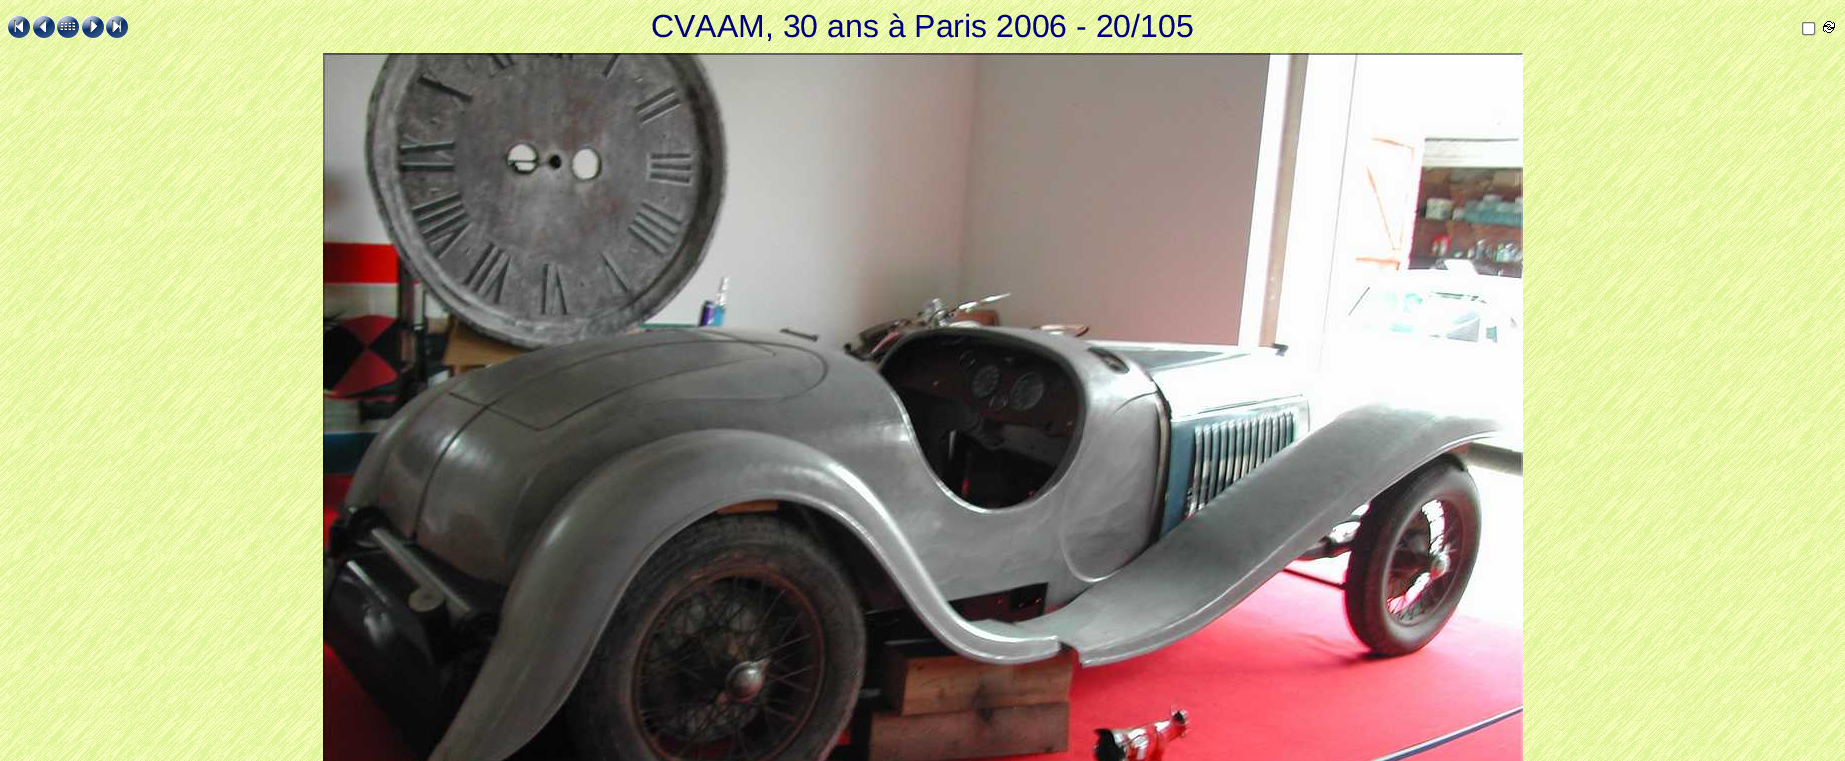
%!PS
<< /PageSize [1845 761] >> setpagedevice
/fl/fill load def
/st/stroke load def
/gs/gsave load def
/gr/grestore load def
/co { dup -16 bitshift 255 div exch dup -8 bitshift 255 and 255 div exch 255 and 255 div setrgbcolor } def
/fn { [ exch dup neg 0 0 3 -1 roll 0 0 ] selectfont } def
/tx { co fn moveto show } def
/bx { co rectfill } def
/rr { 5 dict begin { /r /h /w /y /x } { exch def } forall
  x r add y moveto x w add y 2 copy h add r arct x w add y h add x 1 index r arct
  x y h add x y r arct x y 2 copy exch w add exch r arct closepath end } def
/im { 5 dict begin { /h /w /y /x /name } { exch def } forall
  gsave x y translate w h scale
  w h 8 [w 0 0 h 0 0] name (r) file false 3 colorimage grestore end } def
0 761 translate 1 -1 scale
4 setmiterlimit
0 0 1845 761 16#FFFFFF bx
(media/1.raw) 0 0 1845 761 im
(media/2.raw) 8 16 22 22 im
(media/3.raw) 33 16 22 22 im
(media/4.raw) 57 16 22 22 im
(media/5.raw) 82 16 22 22 im
(media/6.raw) 106 16 22 22 im
1802.5 22.5 12 12 1.5 rr gs fl gr
16#767676 co
st
(media/7.raw) 1823 21 12 12 im
(media/8.raw) 323 53 1200 708 im
(CVAAM, 30 ans à Paris 2006 - 20/105) 651 37 /LiberationSans-Regular 32 16#000080 tx
showpage
